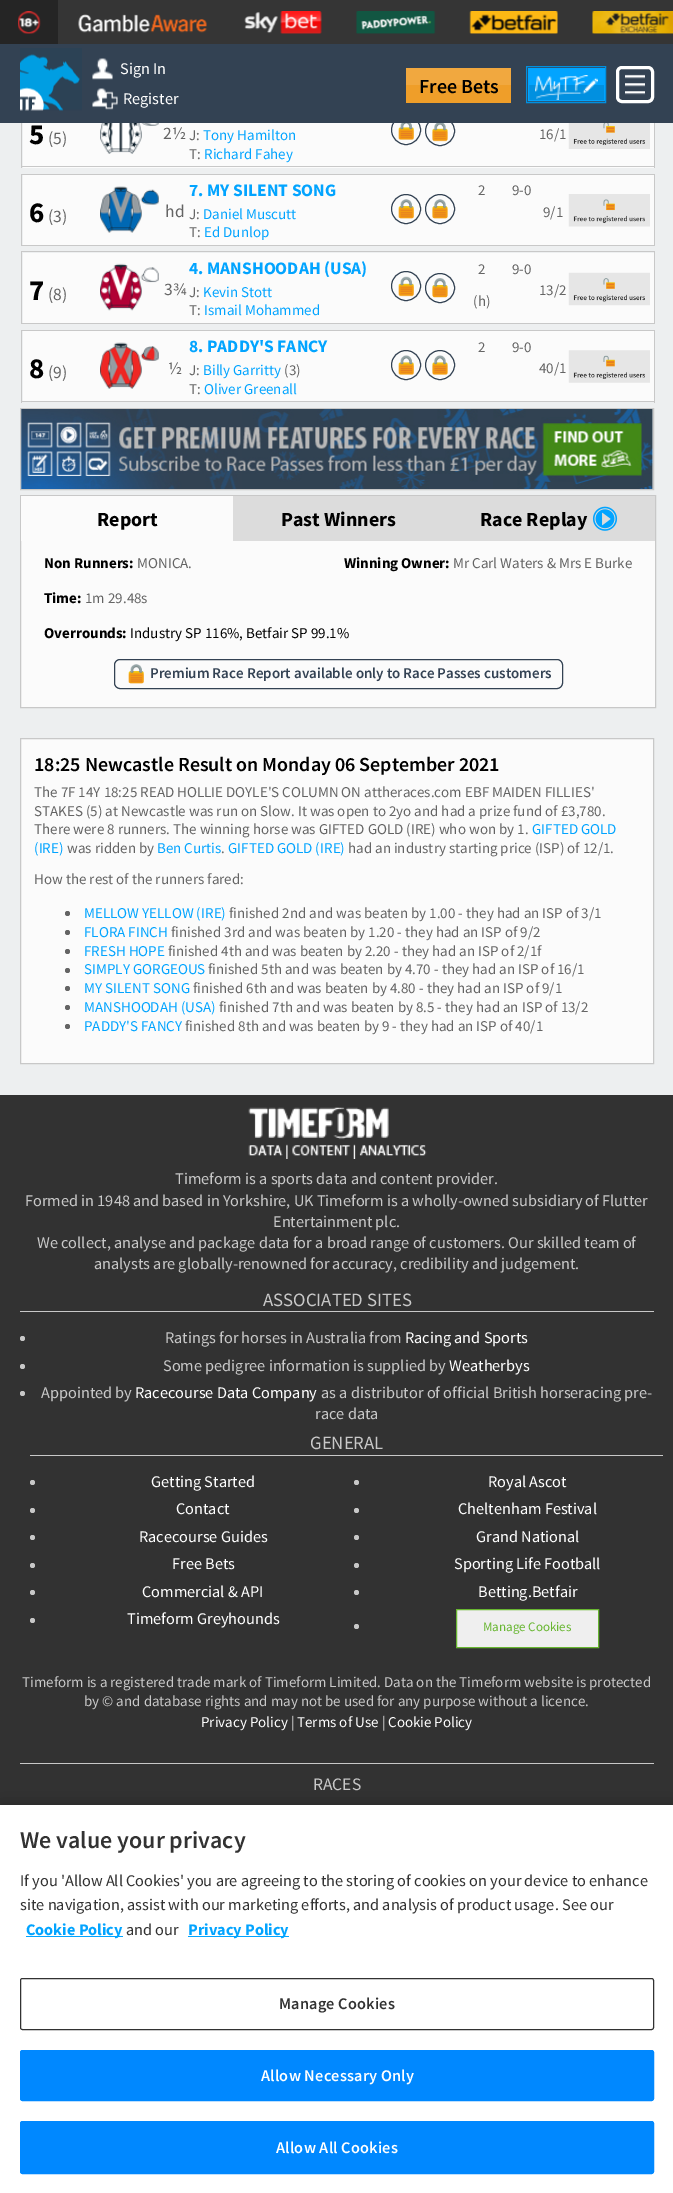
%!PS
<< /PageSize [673 2193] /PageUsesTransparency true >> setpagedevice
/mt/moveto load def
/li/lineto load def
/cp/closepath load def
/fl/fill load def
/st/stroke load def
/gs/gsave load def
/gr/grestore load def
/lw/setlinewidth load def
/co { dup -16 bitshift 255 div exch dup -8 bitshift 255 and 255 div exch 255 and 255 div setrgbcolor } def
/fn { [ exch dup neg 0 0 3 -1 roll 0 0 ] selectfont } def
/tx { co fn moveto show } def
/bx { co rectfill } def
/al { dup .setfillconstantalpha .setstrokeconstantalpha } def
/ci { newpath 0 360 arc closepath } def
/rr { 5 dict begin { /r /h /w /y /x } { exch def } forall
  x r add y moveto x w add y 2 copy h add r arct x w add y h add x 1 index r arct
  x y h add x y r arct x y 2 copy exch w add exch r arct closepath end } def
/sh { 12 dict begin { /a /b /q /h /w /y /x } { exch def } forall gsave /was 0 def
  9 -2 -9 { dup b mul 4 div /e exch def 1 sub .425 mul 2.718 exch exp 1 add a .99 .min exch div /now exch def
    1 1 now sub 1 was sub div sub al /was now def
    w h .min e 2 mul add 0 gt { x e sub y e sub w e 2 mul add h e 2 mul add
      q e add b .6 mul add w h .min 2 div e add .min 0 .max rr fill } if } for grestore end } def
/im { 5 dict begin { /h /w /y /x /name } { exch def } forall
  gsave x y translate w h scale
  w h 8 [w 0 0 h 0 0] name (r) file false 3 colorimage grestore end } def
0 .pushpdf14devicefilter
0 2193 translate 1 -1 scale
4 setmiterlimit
0 0 673 2193 16#323232 bx
58 0 615 44 16#353535 bx
0 0 58 44 16#252525 bx
(media/1.raw) 18 11 23 23 im
(media/2.raw) 78 14 129 19 im
(media/3.raw) 244 11 78 23 im
(media/4.raw) 356 11 80 23 im
(media/5.raw) 469 11 89 23 im
(media/6.raw) 592 11 81 23 im
0 123 673 972 16#EDEFF0 bx
23 123 631 45 16#FBFBFB bx
16#334253 co
406 130 14.5 ci st
440 131 14.5 ci st
0 44 673 79 16#334253 bx
(media/7.raw) 20 48 62 63 im
(media/8.raw) 92 58 21 22 im
406 68 105 17 16#F1A83F bx
406 85 105 18 16#EF9E29 bx
529 69 75 16 16#02A4FF bx
529 85 75 15 16#0190E0 bx
16#02A4FF co
528.5 68.5 76 32 rectstroke
(media/9.raw) 535 75 63 25 im
16#0190E0 co
526.5 66.5 79 36 rectstroke
(media/10.raw) 92 88 26 22 im
16#FFFFFF co
3 lw
617.5 67.5 35 34 4.5 rr st
(media/11.raw) 625 74 20 21 im
654 123 1 45 16#C8C8C8 bx
21 166 634 1 16#C8C8C8 bx
21 123 1 45 16#C8C8C8 bx
(media/12.raw) 100 123 59 31 im
(media/13.raw) 398 123 16 17 im
(media/14.raw) 432 123 16 19 im
(media/15.raw) 568 123 82 26 im
23 175 631 70 16#FBFBFB bx
21 174 634 1 16#C8C8C8 bx
654 174 1 72 16#C8C8C8 bx
21 245 634 1 16#C8C8C8 bx
21 174 1 72 16#C8C8C8 bx
(media/16.raw) 100 186 59 47 im
16#334253 co
1 lw
406 209 14.5 ci st
(media/17.raw) 398 199 16 20 im
440 209 14.5 ci st
(media/18.raw) 432 199 16 20 im
(media/19.raw) 568 194 82 33 im
23 253 631 70 16#FBFBFB bx
21 251 634 1 16#C8C8C8 bx
654 251 1 73 16#C8C8C8 bx
21 323 634 1 16#C8C8C8 bx
21 251 1 73 16#C8C8C8 bx
(media/20.raw) 100 263 59 48 im
16#334253 co
406 286 14.5 ci st
(media/21.raw) 398 276 16 21 im
440 288 14.5 ci st
(media/22.raw) 432 278 16 20 im
(media/23.raw) 568 272 82 34 im
23 331 631 70 16#FBFBFB bx
21 330 634 1 16#C8C8C8 bx
654 330 1 73 16#C8C8C8 bx
21 401 634 1 16#C8C8C8 bx
21 330 1 73 16#C8C8C8 bx
(media/24.raw) 100 342 59 47 im
16#334253 co
406 365 14.5 ci st
(media/25.raw) 398 355 16 20 im
440 365 14.5 ci st
(media/26.raw) 432 355 16 20 im
(media/27.raw) 568 350 82 33 im
16#C8C8C8 co
20.5 408.5 633 81 rectstroke
(media/28.raw) 21 409 632 80 im
21 541 634 166 16#FBFBFB bx
16#C8C8C8 co
20.5 495.5 635 212 rectstroke
21 496 212 45 16#FBFBFB bx
233 496 422 45 16#DCDCDC bx
(media/29.raw) 592 506 26 25 im
16#334253 co
114.5 659.5 448 29 5.5 rr st
(media/17.raw) 128 664 16 20 im
16#FBFBFB co
20.5 738.5 mt 653.5 738.5 li 653.5 1063.5 li 20.5 1063.5 li cp gs fl gr
16#C8C8C8 co
st
16#646464 co
67.5 913.5 2.5 ci fl
67.5 932.5 2.5 ci fl
67.5 951.5 2.5 ci fl
67.5 970.5 2.5 ci fl
67.5 988.5 2.5 ci fl
67.5 1007.5 2.5 ci fl
67.5 1026.5 2.5 ci fl
(media/30.raw) 248 1107 179 52 im
20 1311 634 1 16#C8C8C8 bx
22.5 1338.5 2.5 ci fl
22.5 1366.5 2.5 ci fl
22.5 1393.5 2.5 ci fl
30 1455 633 1 16#C8C8C8 bx
32.5 1482.5 2.5 ci fl
356.5 1482.5 2.5 ci fl
32.5 1510.5 2.5 ci fl
356.5 1510.5 2.5 ci fl
32.5 1537.5 2.5 ci fl
356.5 1537.5 2.5 ci fl
32.5 1565.5 2.5 ci fl
356.5 1565.5 2.5 ci fl
32.5 1592.5 2.5 ci fl
356.5 1592.5 2.5 ci fl
32.5 1620.5 2.5 ci fl
356.5 1626.5 2.5 ci fl
16#EFEFEF co
456.5 1609.5 mt 598.5 1609.5 li 598.5 1647.5 li 456.5 1647.5 li cp gs fl gr
16#68B631 co
st
20 1763 634 1 16#C8C8C8 bx
16#000000 co
0 1805 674 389 0 11 .2 sh
0 1805 673 388 16#FFFFFF bx
26 1936 97 1 16#02A4FF bx
188 1936 101 1 16#02A4FF bx
16#323232 co
20.5 1978.5 633 51 2 rr st
16#0088FF co
20.5 2050.5 633 50 2 rr gs fl gr
st
20.5 2121.5 633 52 2 rr gs fl gr
st
(Sign In) 120 74 /SourceSansPro-Regular 16.25 16#FFFFFF tx
(Free Bets) 419 93 /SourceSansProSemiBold-SemiBold 20 16#000000 tx
(Register) 123 104 /SourceSansPro-Regular 16.25 16#FFFFFF tx
(5) 29 144 /SourceSansPro-Bold 29 16#000000 tx
(\(5\)) 48 144 /SourceSansPro-Regular 17.5 16#646464 tx
(2½) 163 139 /SourceSansPro-Regular 17.5 16#646464 tx
(16/1) 539 139 /SourceSansPro-Regular 15 16#646464 tx
(J:) 189 140 /SourceSansPro-Regular 15 16#646464 tx
(Tony Hamilton) 203 140 /SourceSansPro-Regular 15 16#02A4FF tx
(T:) 189 159 /SourceSansPro-Regular 15 16#646464 tx
(Richard Fahey) 204 159 /SourceSansPro-Regular 15 16#02A4FF tx
(6) 29 222 /SourceSansPro-Bold 29 16#000000 tx
(\(3\)) 48 222 /SourceSansPro-Regular 17.5 16#646464 tx
(hd) 165 217 /SourceSansPro-Regular 17.5 16#646464 tx
(7. MY SILENT SONG) 189 196 /SourceSansPro-Bold 17.5 16#02A4FF tx
(2) 478 195 /SourceSansPro-Regular 15 16#646464 tx
(9-0) 512 195 /SourceSansPro-Regular 15 16#646464 tx
(9/1) 543 217 /SourceSansPro-Regular 15 16#646464 tx
(J:) 189 219 /SourceSansPro-Regular 15 16#646464 tx
(Daniel Muscutt) 203 219 /SourceSansPro-Regular 15 16#02A4FF tx
(T:) 189 237 /SourceSansPro-Regular 15 16#646464 tx
(Ed Dunlop) 204 237 /SourceSansPro-Regular 15 16#02A4FF tx
(4. MANSHOODAH \(USA\)) 189 274 /SourceSansPro-Bold 17.5 16#02A4FF tx
(2) 478 274 /SourceSansPro-Regular 15 16#646464 tx
(9-0) 512 274 /SourceSansPro-Regular 15 16#646464 tx
(7) 29 300 /SourceSansPro-Bold 29 16#000000 tx
(\(8\)) 48 300 /SourceSansPro-Regular 17.5 16#646464 tx
(3¾) 164 295 /SourceSansPro-Regular 17.5 16#646464 tx
(13/2) 539 295 /SourceSansPro-Regular 15 16#646464 tx
(J:) 189 297 /SourceSansPro-Regular 15 16#646464 tx
(Kevin Stott) 203 297 /SourceSansPro-Regular 15 16#02A4FF tx
(T:) 189 315 /SourceSansPro-Regular 15 16#646464 tx
(Ismail Mohammed) 204 315 /SourceSansPro-Regular 15 16#02A4FF tx
(\(h\)) 473 306 /SourceSansPro-Regular 15 16#646464 tx
(8. PADDY'S FANCY) 189 352 /SourceSansPro-Bold 17.5 16#02A4FF tx
(2) 478 352 /SourceSansPro-Regular 15 16#646464 tx
(9-0) 512 352 /SourceSansPro-Regular 15 16#646464 tx
(8) 29 378 /SourceSansPro-Bold 29 16#000000 tx
(\(9\)) 48 378 /SourceSansPro-Regular 17.5 16#646464 tx
(½) 168 374 /SourceSansPro-Regular 17.5 16#646464 tx
(40/1) 539 373 /SourceSansPro-Regular 15 16#646464 tx
(J:) 189 375 /SourceSansPro-Regular 15 16#646464 tx
(Billy Garritty) 203 375 /SourceSansPro-Regular 15 16#02A4FF tx
(\(3\)) 284 375 /SourceSansPro-Regular 15 16#646464 tx
(T:) 189 394 /SourceSansPro-Regular 15 16#646464 tx
(Oliver Greenall) 204 394 /SourceSansPro-Regular 15 16#02A4FF tx
(Report) 97 526 /SourceSansPro-Bold 20 16#000000 tx
(Past Winners) 281 526 /SourceSansPro-Bold 20 16#000000 tx
(Race Replay) 480 526 /SourceSansPro-Bold 20 16#000000 tx
(Non Runners:) 44 568 /SourceSansPro-Bold 15 16#000000 tx
(MONICA.) 137 568 /SourceSansPro-Regular 15 16#646464 tx
(Winning Owner:) 344 568 /SourceSansPro-Bold 15 16#000000 tx
(Mr Carl Waters & Mrs E Burke) 453 568 /SourceSansPro-Regular 15 16#646464 tx
(Time:) 44 603 /SourceSansPro-Bold 15 16#000000 tx
(1m 29.48s) 85 603 /SourceSansPro-Regular 15 16#646464 tx
(Overrounds:) 44 638 /SourceSansPro-Bold 15 16#000000 tx
(Industry SP 116%, Betfair SP 99.1%) 130 638 /SourceSansPro-Regular 15 16#000000 tx
(Premium Race Report available only to Race Passes customers) 150 678 /SourceSansProSemiBold-SemiBold 15 16#334253 tx
(18:25 Newcastle Result on Monday 06 September 2021) 34 771 /SourceSansProSemiBold-SemiBold 20 16#000000 tx
(The 7F 14Y 18:25 READ HOLLIE DOYLE'S COLUMN ON attheraces.com EBF MAIDEN FILLIES') 34 797 /SourceSansPro-Regular 15 16#646464 tx
(STAKES \(5\) at Newcastle was run on Slow. It was open to 2yo and had a prize fund of £3,780.) 34 816 /SourceSansPro-Regular 15 16#646464 tx
(There were 8 runners. The winning horse was GIFTED GOLD \(IRE\) who won by 1.) 34 834 /SourceSansPro-Regular 15 16#646464 tx
(GIFTED GOLD) 532 834 /SourceSansPro-Regular 15 16#02A4FF tx
(\(IRE\)) 34 853 /SourceSansPro-Regular 15 16#02A4FF tx
(was ridden by) 67 853 /SourceSansPro-Regular 15 16#646464 tx
(Ben Curtis) 157 853 /SourceSansPro-Regular 15 16#02A4FF tx
(.) 221 853 /SourceSansPro-Regular 15 16#646464 tx
(GIFTED GOLD \(IRE\)) 228 853 /SourceSansPro-Regular 15 16#02A4FF tx
(had an industry starting price \(ISP\) of 12/1.) 348 853 /SourceSansPro-Regular 15 16#646464 tx
(How the rest of the runners fared:) 34 884 /SourceSansPro-Regular 15 16#646464 tx
(MELLOW YELLOW \(IRE\)) 84 918 /SourceSansPro-Regular 15 16#02A4FF tx
(finished 2nd and was beaten by 1.00 - they had an ISP of 3/1) 229 918 /SourceSansPro-Regular 15 16#646464 tx
(FLORA FINCH) 84 937 /SourceSansPro-Regular 15 16#02A4FF tx
(finished 3rd and was beaten by 1.20 - they had an ISP of 9/2) 171 937 /SourceSansPro-Regular 15 16#646464 tx
(FRESH HOPE) 84 956 /SourceSansPro-Regular 15 16#02A4FF tx
(finished 4th and was beaten by 2.20 - they had an ISP of 2/1f) 168 956 /SourceSansPro-Regular 15 16#646464 tx
(SIMPLY GORGEOUS) 84 974 /SourceSansPro-Regular 15 16#02A4FF tx
(finished 5th and was beaten by 4.70 - they had an ISP of 16/1) 208 974 /SourceSansPro-Regular 15 16#646464 tx
(MY SILENT SONG) 84 993 /SourceSansPro-Regular 15 16#02A4FF tx
(finished 6th and was beaten by 4.80 - they had an ISP of 9/1) 193 993 /SourceSansPro-Regular 15 16#646464 tx
(MANSHOODAH \(USA\)) 84 1012 /SourceSansPro-Regular 15 16#02A4FF tx
(finished 7th and was beaten by 8.5 - they had an ISP of 13/2) 219 1012 /SourceSansPro-Regular 15 16#646464 tx
(PADDY'S FANCY) 84 1031 /SourceSansPro-Regular 15 16#02A4FF tx
(finished 8th and was beaten by 9 - they had an ISP of 40/1) 185 1031 /SourceSansPro-Regular 15 16#646464 tx
(Timeform is a sports data and content provider.) 175 1184 /SourceSansPro-Regular 16.25 16#C8C8C8 tx
(Formed in 1948 and based in Yorkshire, UK Timeform is a wholly-owned subsidiary of Flutter) 25 1206 /SourceSansPro-Regular 16.25 16#C8C8C8 tx
(Entertainment plc.) 273 1227 /SourceSansPro-Regular 16.25 16#C8C8C8 tx
(We collect, analyse and package data for a broad range of customers. Our skilled team of) 37 1248 /SourceSansPro-Regular 16.25 16#C8C8C8 tx
(analysts are globally-renowned for accuracy, credibility and judgement.) 94 1269 /SourceSansPro-Regular 16.25 16#C8C8C8 tx
(ASSOCIATED SITES) 263 1306 /SourceSansPro-Regular 18.75 16#C8C8C8 tx
(Ratings for horses in Australia from) 165 1343 /SourceSansPro-Regular 16.25 16#C8C8C8 tx
(Racing and Sports) 405 1343 /SourceSansPro-Regular 16.25 16#FFFFFF tx
(Some pedigree information is supplied by) 163 1371 /SourceSansPro-Regular 16.25 16#C8C8C8 tx
(Weatherbys) 449 1371 /SourceSansPro-Regular 16.25 16#FFFFFF tx
(Appointed by) 41 1398 /SourceSansPro-Regular 16.25 16#C8C8C8 tx
(Racecourse Data Company) 135 1398 /SourceSansPro-Regular 16.25 16#FFFFFF tx
(as a distributor of official British horseracing pre-) 321 1398 /SourceSansPro-Regular 16.25 16#C8C8C8 tx
(race data) 315 1419 /SourceSansPro-Regular 16.25 16#C8C8C8 tx
(GENERAL) 310 1449 /SourceSansPro-Regular 18.75 16#C8C8C8 tx
(Getting Started) 151 1487 /SourceSansPro-Regular 16.25 16#FFFFFF tx
(Royal Ascot) 488 1487 /SourceSansPro-Regular 16.25 16#FFFFFF tx
(Contact) 176 1514 /SourceSansPro-Regular 16.25 16#FFFFFF tx
(Cheltenham Festival) 458 1514 /SourceSansPro-Regular 16.25 16#FFFFFF tx
(Racecourse Guides) 139 1542 /SourceSansPro-Regular 16.25 16#FFFFFF tx
(Grand National) 476 1542 /SourceSansPro-Regular 16.25 16#FFFFFF tx
(Free Bets) 172 1569 /SourceSansPro-Regular 16.25 16#FFFFFF tx
(Sporting Life Football) 454 1569 /SourceSansPro-Regular 16.25 16#FFFFFF tx
(Commercial & API) 142 1597 /SourceSansPro-Regular 16.25 16#FFFFFF tx
(Betting.Betfair) 478 1597 /SourceSansPro-Regular 16.25 16#FFFFFF tx
(Timeform Greyhounds) 127 1624 /SourceSansPro-Regular 16.25 16#FFFFFF tx
(Manage Cookies) 483 1631 /SourceSansPro-Regular 13 16#68B631 tx
(Timeform is a registered trade mark of Timeform Limited. Data on the Timeform website is protected) 22 1687 /SourceSansPro-Regular 15 16#C8C8C8 tx
(by © and database rights and may not be used for any purpose without a licence.) 84 1706 /SourceSansPro-Regular 15 16#C8C8C8 tx
(Privacy Policy) 201 1727 /SourceSansPro-Regular 15 16#FFFFFF tx
(|) 291 1727 /SourceSansPro-Regular 15 16#C8C8C8 tx
(Terms of Use) 297 1727 /SourceSansPro-Regular 15 16#FFFFFF tx
(|) 382 1727 /SourceSansPro-Regular 15 16#C8C8C8 tx
(Cookie Policy) 388 1727 /SourceSansPro-Regular 15 16#FFFFFF tx
(RACES) 313 1790 /SourceSansPro-Regular 17.5 16#C8C8C8 tx
(We value your privacy) 20 1848 /SourceSansProSemiBold-SemiBold 24 16#323232 tx
(If you 'Allow All Cookies' you are agreeing to the storing of cookies on your device to enhance) 20 1886 /SourceSansPro-Regular 16.25 16#323232 tx
(site navigation, assist with our marketing efforts, and analysis of product usage. See our) 20 1910 /SourceSansPro-Regular 16.25 16#323232 tx
(Cookie Policy) 26 1935 /SourceSansPro-Bold 16.25 16#02A4FF tx
(and our) 126 1935 /SourceSansPro-Regular 16.25 16#323232 tx
(Privacy Policy) 188 1935 /SourceSansPro-Bold 16.25 16#02A4FF tx
/SourceSansProSemiBold-SemiBold 16.25 fn
16#323232 co
279 2009 mt .2 0 (Manage Cookies) ashow
16#FFFFFF co
261 2081 mt .2 0 (Allow Necessary Only) ashow
276 2153 mt .2 0 (Allow All Cookies) ashow
.poppdf14devicefilter showpage
